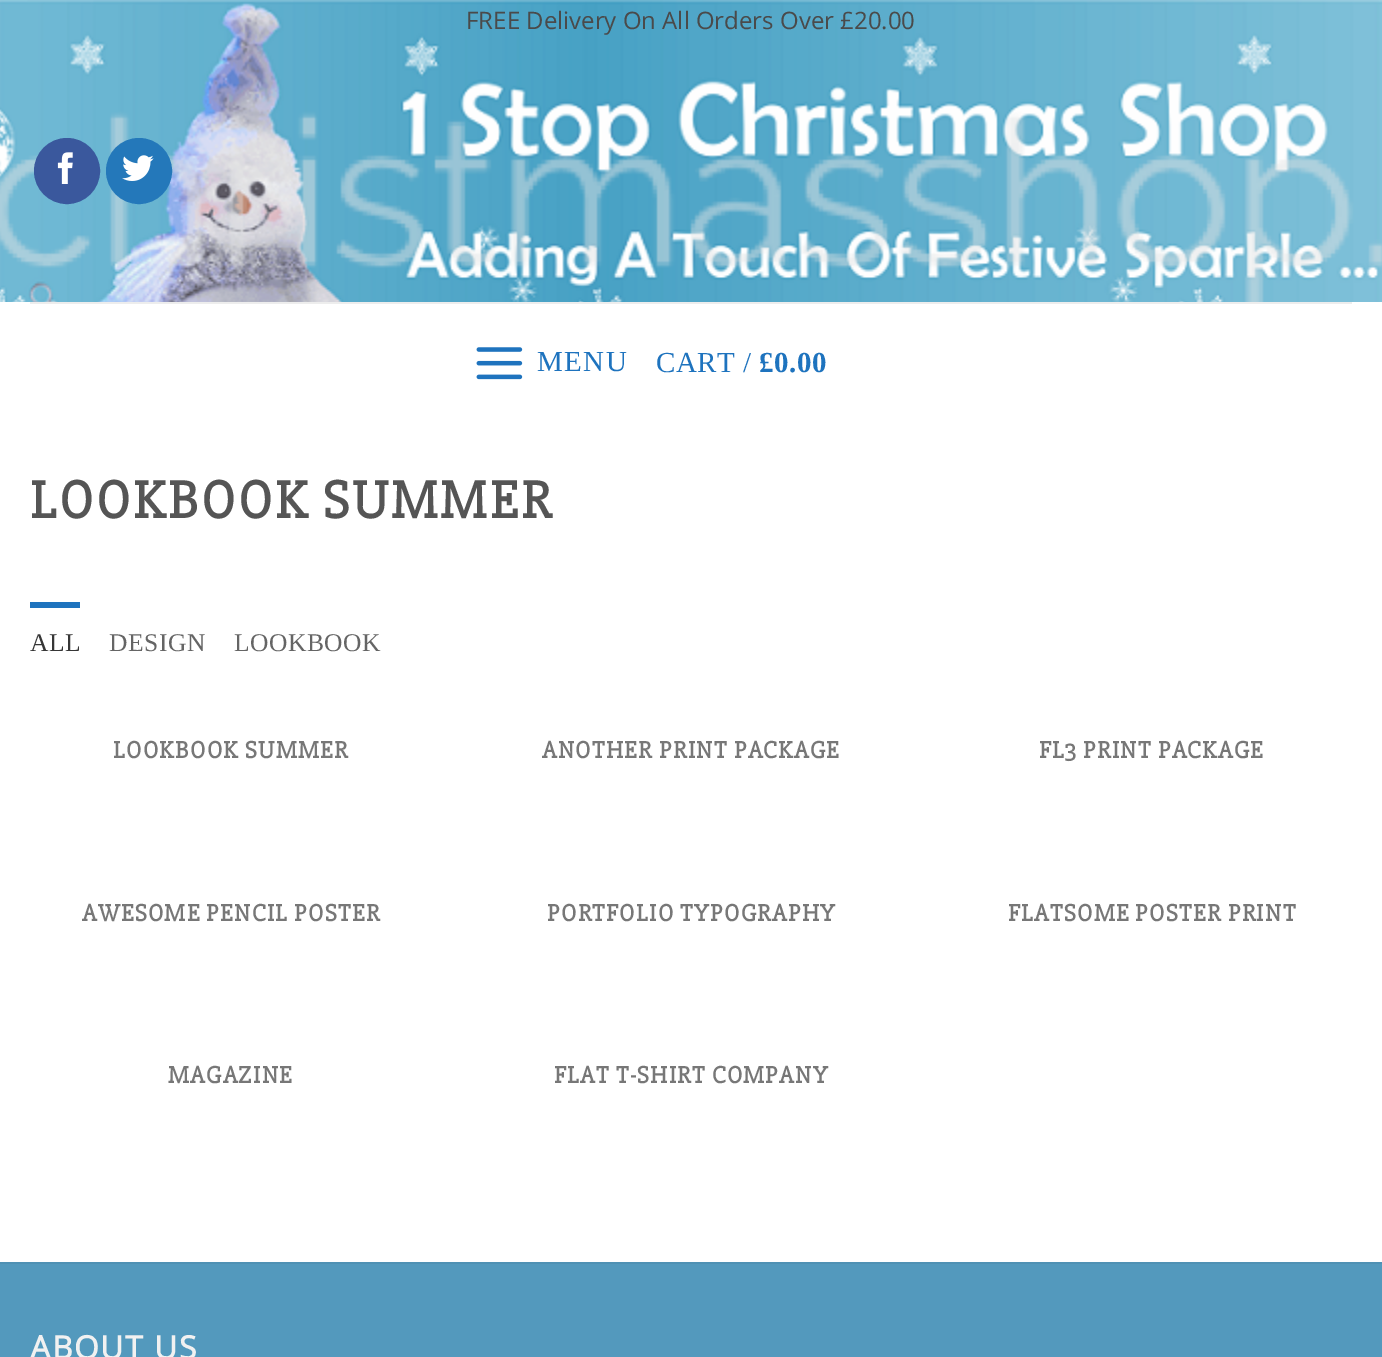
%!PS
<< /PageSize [1382 1357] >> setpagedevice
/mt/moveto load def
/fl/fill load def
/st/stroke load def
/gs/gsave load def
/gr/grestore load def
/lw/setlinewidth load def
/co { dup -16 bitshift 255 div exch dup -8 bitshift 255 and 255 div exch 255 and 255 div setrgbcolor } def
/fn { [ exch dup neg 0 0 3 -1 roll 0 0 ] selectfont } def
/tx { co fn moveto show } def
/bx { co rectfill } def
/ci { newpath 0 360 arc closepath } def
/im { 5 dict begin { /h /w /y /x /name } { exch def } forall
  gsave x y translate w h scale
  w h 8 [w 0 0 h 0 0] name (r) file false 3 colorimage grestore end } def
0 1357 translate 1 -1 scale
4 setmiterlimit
0 0 1382 1357 16#FFFFFF bx
(media/1.raw) 0 0 1382 302 im
16#3A589D co
67 171 32 ci gs fl gr
2 lw
st
(media/2.raw) 57 152 16 32 im
16#2478BA co
139 171 32 ci gs fl gr
st
(media/3.raw) 122 155 32 26 im
30 302 1322 2 16#EDEDED bx
(media/4.raw) 476 347 47 33 im
30 602 50 6 16#1E73BE bx
0 1264 1382 93 16#5399BD bx
0 1262 1382 2 16#4F91B4 bx
(FREE Delivery On All Orders Over £20.00) 466 29 /OpenSans-Regular 24 16#4A4A4A tx
/LiberationSerif-Regular 29 fn
16#1E73BE co
537 371 mt 1.5 0 (MENU) ashow
656 372 mt .5 0 (CART /) ashow
/LiberationSerif-Bold 29 fn
759 372 mt .5 0 (£0.00) ashow
/Slabo27px-Bold 54.5 fn
16#555555 co
30 518 mt 2.75 0 (LOOKBOOK SUMMER) ashow
/LiberationSerif-Regular 25.5 fn
16#363636 co
30 651 mt .5 0 (ALL) ashow
16#656565 co
109 651 mt .5 0 (DESIGN) ashow
234 651 mt .5 0 (LOOKBOOK) ashow
/Slabo27px-Bold 24.5 fn
16#777777 co
113 758 mt 1.25 0 (LOOKBOOK SUMMER) ashow
542 758 mt 1.25 0 (ANOTHER PRINT PACKAGE) ashow
1039 758 mt 1.25 0 (FL3 PRINT PACKAGE) ashow
82 921 mt 1.25 0 (AWESOME PENCIL POSTER) ashow
547 921 mt 1.25 0 (PORTFOLIO TYPOGRAPHY) ashow
1008 921 mt 1.25 0 (FLATSOME POSTER PRINT) ashow
168 1083 mt 1.25 0 (MAGAZINE) ashow
554 1083 mt 1.25 0 (FLAT T-SHIRT COMPANY) ashow
/OpenSans-Bold 32 fn
16#F1F1F1 co
30 1359 mt 1.5 0 (ABOUT US) ashow
showpage
